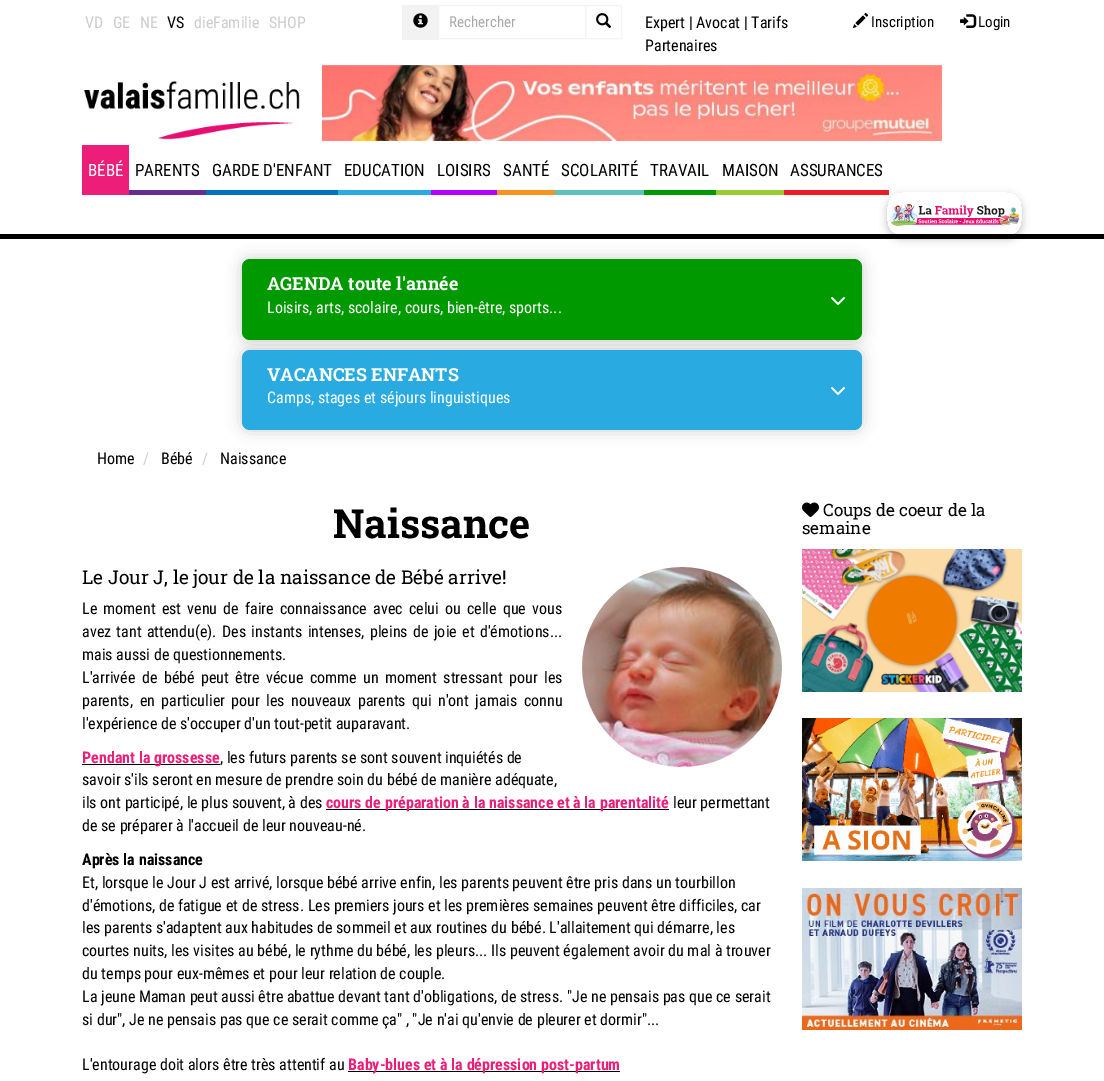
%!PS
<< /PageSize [1104 1081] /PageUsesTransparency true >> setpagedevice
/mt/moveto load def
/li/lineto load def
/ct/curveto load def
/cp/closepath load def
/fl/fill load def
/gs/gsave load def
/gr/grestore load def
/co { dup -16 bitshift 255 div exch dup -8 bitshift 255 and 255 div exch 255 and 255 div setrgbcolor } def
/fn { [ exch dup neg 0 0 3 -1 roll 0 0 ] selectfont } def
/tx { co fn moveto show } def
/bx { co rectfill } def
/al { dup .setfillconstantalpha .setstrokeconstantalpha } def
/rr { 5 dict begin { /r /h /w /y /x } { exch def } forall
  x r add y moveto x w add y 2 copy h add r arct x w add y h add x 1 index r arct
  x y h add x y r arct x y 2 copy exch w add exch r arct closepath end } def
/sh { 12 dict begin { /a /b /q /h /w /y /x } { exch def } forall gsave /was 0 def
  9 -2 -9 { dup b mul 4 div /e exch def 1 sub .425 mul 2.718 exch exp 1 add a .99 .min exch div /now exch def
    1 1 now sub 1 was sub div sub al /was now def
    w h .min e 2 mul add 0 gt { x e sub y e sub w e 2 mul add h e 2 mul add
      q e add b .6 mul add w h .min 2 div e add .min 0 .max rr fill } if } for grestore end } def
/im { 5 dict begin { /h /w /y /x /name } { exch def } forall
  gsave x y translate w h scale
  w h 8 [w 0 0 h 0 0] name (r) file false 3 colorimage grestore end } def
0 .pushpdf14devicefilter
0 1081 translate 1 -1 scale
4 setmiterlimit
0 0 1104 1081 16#FFFFFF bx
402 5 36 35 16#F2F2F2 bx
(media/1.raw) 413 13 15 15 im
438.5 5.5 147 33 rectstroke
16#F3F3F2 co
585.5 5.5 36 33 rectstroke
(media/2.raw) 596 13 16 15 im
(media/3.raw) 852 12 17 17 im
(media/4.raw) 960 14 17 14 im
(media/5.raw) 83 81 217 59 im
(media/6.raw) 322 65 620 76 im
82 145 47 50 16#ED1E79 bx
129 190 77 5 16#662D91 bx
206 190 132 5 16#0071BC bx
338 190 93 5 16#29ABE2 bx
431 190 66 5 16#B500FF bx
497 190 58 5 16#F7931E bx
555 190 89 5 16#5FC0BD bx
644 190 72 5 16#009900 bx
716 190 68 5 16#99CC33 bx
784 190 105 5 16#ED1C24 bx
0 234 1104 5 16#000000 bx
gs
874 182 mt 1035 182 li 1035 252 li 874 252 li cp 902 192 mt 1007 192 li 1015.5 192 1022 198.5 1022 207 ct 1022 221 li 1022 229.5 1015.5 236 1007 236 ct 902 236 li 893.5 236 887 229.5 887 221 ct 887 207 li 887 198.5 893.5 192 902 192 ct cp eoclip newpath
887 195 135 44 15 4 .24 sh
gr
(media/7.raw) 890 203 130 23 im
242 259 620 81 8 7.5 .2 sh
16#009900 co
242 259 620 81 8 rr fl
(media/8.raw) 831 297 14 8 im
16#000000 co
242 350 620 80 8 7.5 .2 sh
16#29ABE2 co
242 350 620 80 8 rr fl
(media/9.raw) 831 387 14 8 im
(media/10.raw) 582 567 200 200 im
82 764 138 1 16#000000 bx
326 809 343 1 16#000000 bx
348 1071 272 1 16#000000 bx
(media/11.raw) 802 502 17 15 im
(media/12.raw) 802 549 220 143 im
(media/13.raw) 802 718 220 143 im
(media/14.raw) 802 888 220 142 im
(VD) 85 28 /RobotoCondensed-Regular 16 16#CCCCCC tx
(GE) 113 28 /RobotoCondensed-Regular 16 16#CCCCCC tx
(NE) 140 28 /RobotoCondensed-Regular 16 16#CCCCCC tx
(VS) 167 28 /RobotoCondensed-Regular 16 16#000000 tx
(dieFamilie) 194 28 /RobotoCondensed-Regular 16 16#CCCCCC tx
(SHOP) 269 28 /RobotoCondensed-Regular 16 16#CCCCCC tx
(Rechercher) 449 27 /RobotoCondensed-Regular 15 16#AAAAAA tx
(Expert | Avocat | Tarifs) 645 28 /RobotoCondensed-Regular 16 16#000000 tx
(Partenaires) 645 51 /RobotoCondensed-Regular 16 16#000000 tx
(Inscription) 871 27 /RobotoCondensed-Regular 15 16#000000 tx
(Login) 978 27 /RobotoCondensed-Regular 15 16#000000 tx
(BÉBÉ) 88 176 /RobotoCondensed-Regular 17 16#FFFFFF tx
(PARENTS) 135 176 /RobotoCondensed-Regular 17 16#000000 tx
(GARDE D'ENFANT) 212 176 /RobotoCondensed-Regular 17 16#000000 tx
(EDUCATION) 344 176 /RobotoCondensed-Regular 17 16#000000 tx
(LOISIRS) 437 176 /RobotoCondensed-Regular 17 16#000000 tx
(SANTÉ) 503 176 /RobotoCondensed-Regular 17 16#000000 tx
(SCOLARITÉ) 561 176 /RobotoCondensed-Regular 17 16#000000 tx
(TRAVAIL) 650 176 /RobotoCondensed-Regular 17 16#000000 tx
(MAISON) 722 176 /RobotoCondensed-Regular 17 16#000000 tx
(ASSURANCES) 790 176 /RobotoCondensed-Regular 17 16#000000 tx
(AGENDA toute l'année) 267 290 /RobotoSlab-Bold 18 16#FFFFFF tx
(Loisirs, arts, scolaire, cours, bien-être, sports...) 267 313 /RobotoCondensed-Regular 16 16#FFFFFF tx
(VACANCES ENFANTS) 267 381 /RobotoSlab-Bold 18 16#FFFFFF tx
(Camps, stages et séjours linguistiques) 267 403 /RobotoCondensed-Regular 16 16#FFFFFF tx
(Home) 97 464 /RobotoCondensed-Regular 16 16#000000 tx
(/) 143 464 /RobotoCondensed-Regular 16 16#CCCCCC tx
(Bébé) 161 464 /RobotoCondensed-Regular 16 16#000000 tx
(/) 202 464 /RobotoCondensed-Regular 16 16#CCCCCC tx
(Naissance) 220 464 /RobotoCondensed-Regular 16 16#000000 tx
(Naissance) 333 538 /RobotoSlab-Bold 40 16#000000 tx
(Le Jour J, le jour de la naissance de Bébé arrive!) 82 584 /RobotoSlab-Regular 19 16#000000 tx
/RobotoCondensed-Regular 16 fn
82 614 mt 2.5 0 32 (Le moment est venu de faire connaissance avec celui ou celle que vous) widthshow
82 637 mt 1.75 0 32 (avez tant attendu\(e\). Des instants intenses, pleins de joie et d'émotions...) widthshow
(mais aussi de questionnements.) 82 660 /RobotoCondensed-Regular 16 16#000000 tx
82 683 mt 2.75 0 32 (L'arrivée de bébé peut être vécue comme un moment stressant pour les) widthshow
(parents) 82 706 /RobotoCondensed-Regular 16 16#000000 tx
130 706 mt 2.75 0 32 (, en particulier pour les nouveaux parents qui n'ont jamais connu) widthshow
(l'expérience de s'occuper d'un tout-petit auparavant.) 82 729 /RobotoCondensed-Regular 16 16#000000 tx
(Pendant la grossesse) 82 763 /RobotoCondensed-Bold 16 16#ED1E79 tx
(, les futurs parents se sont souvent inquiétés de) 220 763 /RobotoCondensed-Regular 16 16#000000 tx
(savoir s'ils seront en mesure de prendre soin du bébé de manière adéquate,) 82 785 /RobotoCondensed-Regular 16 16#000000 tx
(ils ont participé, le plus souvent, à des) 82 808 /RobotoCondensed-Regular 16 16#000000 tx
(cours de préparation à la naissance et à la parentalité) 326 808 /RobotoCondensed-Bold 16 16#ED1E79 tx
(leur permettant) 673 808 /RobotoCondensed-Regular 16 16#000000 tx
(de se préparer à l'accueil de leur nouveau-né.) 82 831 /RobotoCondensed-Regular 16 16#000000 tx
(Après la naissance) 82 865 /RobotoCondensed-Bold 16 16#000000 tx
(Et, lorsque le Jour J est arrivé, lorsque bébé arrive enfin, les parents peuvent être pris dans un tourbillon) 82 888 /RobotoCondensed-Regular 16 16#000000 tx
(d'émotions, de fatigue et de stress. Les premiers jours et les premières semaines peuvent être difficiles, car) 82 911 /RobotoCondensed-Regular 16 16#000000 tx
(les parents s'adaptent aux habitudes de sommeil et aux routines du bébé. L'allaitement qui démarre, les) 82 933 /RobotoCondensed-Regular 16 16#000000 tx
(courtes nuits, les visites au bébé, le rythme du bébé, les pleurs... Ils peuvent également avoir du mal à trouver) 82 956 /RobotoCondensed-Regular 16 16#000000 tx
(du temps pour eux-mêmes et pour leur relation de couple.) 82 979 /RobotoCondensed-Regular 16 16#000000 tx
(La jeune Maman peut aussi être abattue devant tant d'obligations, de stress. "Je ne pensais pas que ce serait) 82 1002 /RobotoCondensed-Regular 16 16#000000 tx
(si dur", Je ne pensais pas que ce serait comme ça" , "Je n'ai qu'envie de pleurer et dormir"...) 82 1025 /RobotoCondensed-Regular 16 16#000000 tx
(L'entourage doit alors être très attentif au) 82 1070 /RobotoCondensed-Regular 16 16#000000 tx
(Baby-blues et à la dépression post-partum) 348 1070 /RobotoCondensed-Bold 16 16#ED1E79 tx
(Coups de coeur de la) 823 516 /RobotoSlab-Regular 17 16#000000 tx
(semaine) 802 534 /RobotoSlab-Regular 17 16#000000 tx
.poppdf14devicefilter showpage
